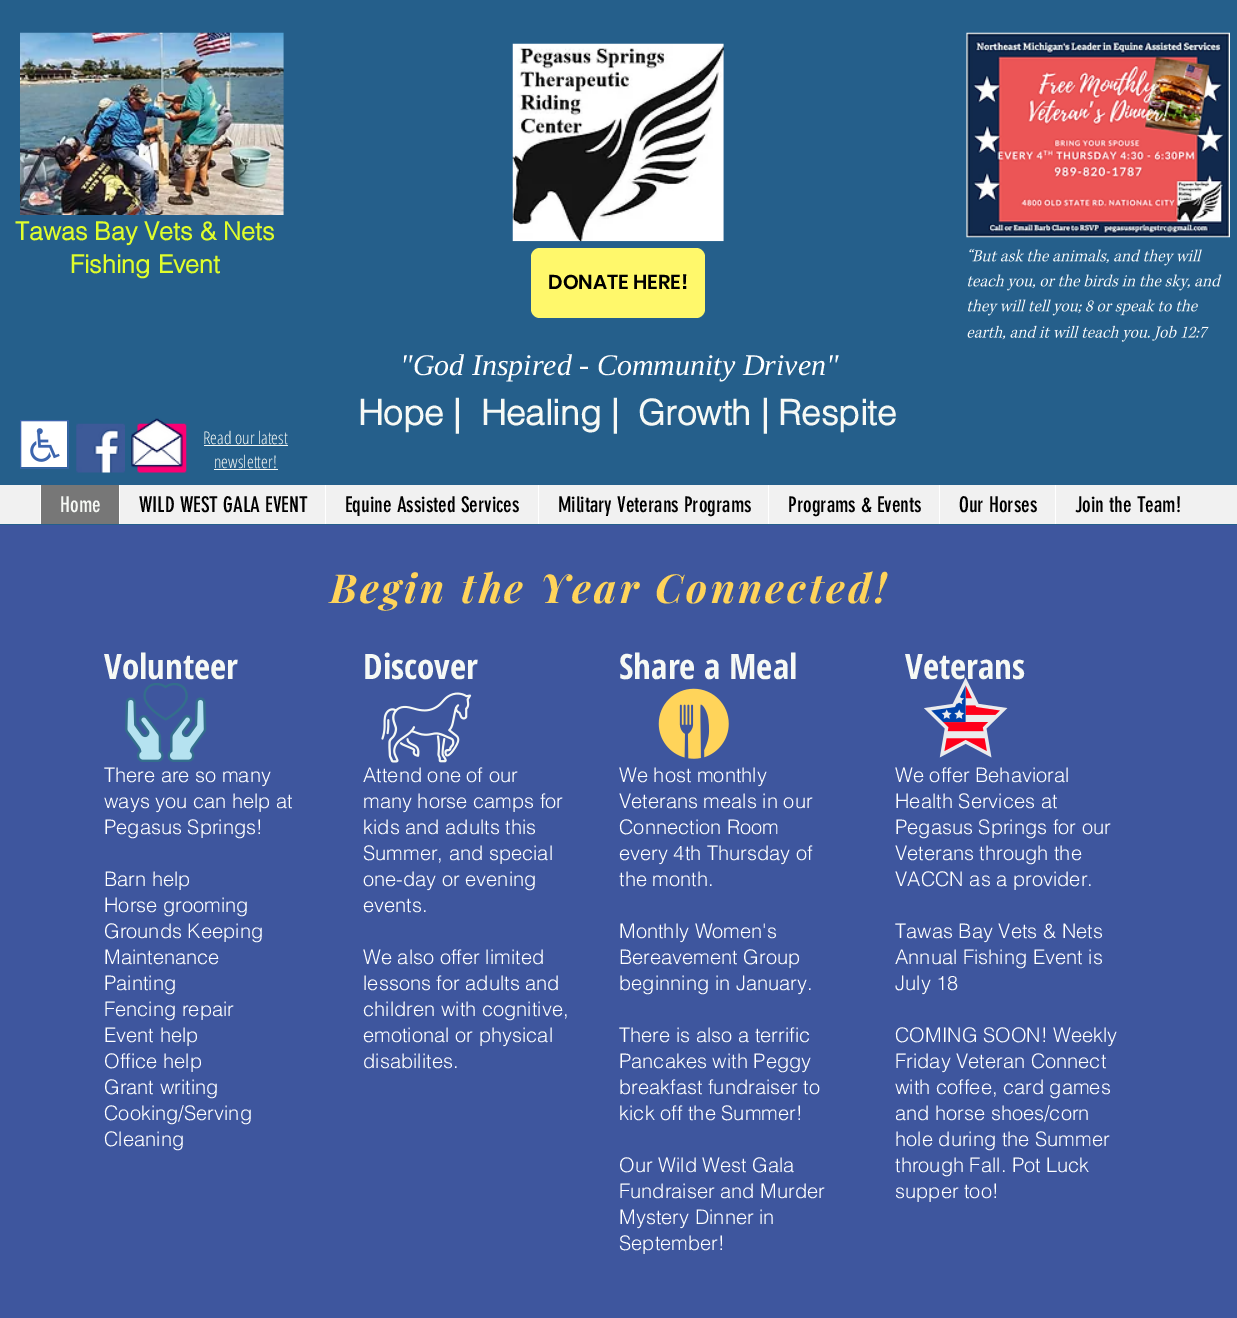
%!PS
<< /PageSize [1237 1318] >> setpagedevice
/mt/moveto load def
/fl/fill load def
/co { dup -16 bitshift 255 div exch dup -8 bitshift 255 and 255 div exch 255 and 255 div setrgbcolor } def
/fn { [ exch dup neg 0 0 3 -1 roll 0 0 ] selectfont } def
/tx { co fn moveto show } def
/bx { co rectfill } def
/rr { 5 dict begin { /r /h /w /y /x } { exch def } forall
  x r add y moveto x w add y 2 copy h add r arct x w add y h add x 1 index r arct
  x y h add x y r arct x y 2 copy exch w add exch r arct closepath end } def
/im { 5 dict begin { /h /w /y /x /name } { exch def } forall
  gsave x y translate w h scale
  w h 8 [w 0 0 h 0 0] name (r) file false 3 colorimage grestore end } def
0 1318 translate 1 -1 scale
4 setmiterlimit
0 0 1237 1318 16#255F8B bx
(media/1.raw) 20 32 264 183 im
(media/2.raw) 512 43 212 199 im
(media/3.raw) 966 32 264 206 im
16#FFF86B co
531 248 174 70 9 rr fl
(media/4.raw) 969 248 233 18 im
(media/5.raw) 968 274 254 17 im
(media/6.raw) 968 299 230 17 im
(media/7.raw) 967 325 242 17 im
(media/8.raw) 20 420 49 49 im
(media/11.raw) 137 423 50 50 im
(media/9.raw) 131 418 52 50 im
(media/10.raw) 76 423 49 50 im
204 445 84 1 16#F6F9F5 bx
214 469 64 1 16#F6F9F5 bx
0 485 1237 39 16#F1F1F1 bx
41 485 78 39 16#777777 bx
40 485 1 39 16#FFFFFF bx
119 485 1 39 16#FFFFFF bx
325 485 1 39 16#FFFFFF bx
538 485 1 39 16#FFFFFF bx
768 485 1 39 16#FFFFFF bx
939 485 1 39 16#FFFFFF bx
1055 485 1 39 16#FFFFFF bx
0 525 1237 793 16#3E569E bx
(media/12.raw) 125 683 82 79 im
(media/13.raw) 381 692 91 71 im
(media/14.raw) 658 688 71 71 im
(Tawas Bay Vets & Nets) 15 240 /helvetica-Bold 25 16#E0FD2C tx
(Fishing Event) 70 273 /helvetica-Bold 25 16#E0FD2C tx
(DONATE HERE!) 548 289 /Poppins-SemiBold 20 16#000000 tx
("God Inspired - Community Driven") 400 375 /LiberationSerif-Italic 30 16#FFFFFF tx
(Hope |  Healing |  Growth | Respite) 358 425 /helvetica-Bold 35 16#F6F9F5 tx
(Read our latest) 203 444 /OpenSansCondensed-Light 17.5 16#F6F9F5 tx
(newsletter!) 214 468 /OpenSansCondensed-Light 17.5 16#F6F9F5 tx
(Home) 60 512 /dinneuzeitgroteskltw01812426-Regular 21.25 16#F6F9F5 tx
(WILD WEST GALA EVENT) 139 512 /dinneuzeitgroteskltw01812426-Regular 21.25 16#000000 tx
(Equine Assisted Services) 345 512 /dinneuzeitgroteskltw01812426-Regular 21.25 16#000000 tx
(Military Veterans Programs) 558 512 /dinneuzeitgroteskltw01812426-Regular 21.25 16#000000 tx
(Programs & Events) 788 512 /dinneuzeitgroteskltw01812426-Regular 21.25 16#000000 tx
(Our Horses) 959 512 /dinneuzeitgroteskltw01812426-Regular 21.25 16#000000 tx
(Join the Team!) 1075 512 /dinneuzeitgroteskltw01812426-Regular 21.25 16#000000 tx
/PlayfairDisplay-BoldItalic 40 fn
16#FFD45A co
330 603 mt 3.2 0 (Begin the Year Connected!) ashow
(Volunteer) 104 679 /OpenSansCondensed-Bold 35 16#F6F9F5 tx
(Discover) 363 679 /OpenSansCondensed-Bold 35 16#F6F9F5 tx
(Share a Meal) 619 679 /OpenSansCondensed-Bold 35 16#F6F9F5 tx
(Veterans) 905 679 /OpenSansCondensed-Bold 35 16#F6F9F5 tx
(media/15.raw) 924 677 84 81 im
(There are so many) 104 782 /helvetica-Light 20 16#FFFFFF tx
(ways you can help at) 104 808 /helvetica-Light 20 16#FFFFFF tx
(Pegasus Springs!) 104 834 /helvetica-Light 20 16#FFFFFF tx
(Barn help) 104 886 /helvetica-Light 20 16#FFFFFF tx
(Horse grooming) 104 912 /helvetica-Light 20 16#FFFFFF tx
(Grounds Keeping) 104 938 /helvetica-Light 20 16#FFFFFF tx
(Maintenance) 104 964 /helvetica-Light 20 16#FFFFFF tx
(Painting) 104 990 /helvetica-Light 20 16#FFFFFF tx
(Fencing repair) 104 1016 /helvetica-Light 20 16#FFFFFF tx
(Event help) 104 1042 /helvetica-Light 20 16#FFFFFF tx
(Office help) 104 1068 /helvetica-Light 20 16#FFFFFF tx
(Grant writing) 104 1094 /helvetica-Light 20 16#FFFFFF tx
(Cooking/Serving) 104 1120 /helvetica-Light 20 16#FFFFFF tx
(Cleaning) 104 1146 /helvetica-Light 20 16#FFFFFF tx
(Attend one of our) 363 782 /helvetica-Light 20 16#FFFFFF tx
(many horse camps for) 363 808 /helvetica-Light 20 16#FFFFFF tx
(kids and adults this) 363 834 /helvetica-Light 20 16#FFFFFF tx
(Summer, and special) 363 860 /helvetica-Light 20 16#FFFFFF tx
(one-day or evening) 363 886 /helvetica-Light 20 16#FFFFFF tx
(events.) 363 912 /helvetica-Light 20 16#FFFFFF tx
(We also offer limited) 363 964 /helvetica-Light 20 16#FFFFFF tx
(lessons for adults and) 363 990 /helvetica-Light 20 16#FFFFFF tx
(children with cognitive,) 363 1016 /helvetica-Light 20 16#FFFFFF tx
(emotional or physical) 363 1042 /helvetica-Light 20 16#FFFFFF tx
(disabilites.) 363 1068 /helvetica-Light 20 16#FFFFFF tx
(We host monthly) 619 782 /helvetica-Light 20 16#FFFFFF tx
(Veterans meals in our) 619 808 /helvetica-Light 20 16#FFFFFF tx
(Connection Room) 619 834 /helvetica-Light 20 16#FFFFFF tx
(every 4th Thursday of) 619 860 /helvetica-Light 20 16#FFFFFF tx
(the month.) 619 886 /helvetica-Light 20 16#FFFFFF tx
(Monthly Women's) 619 938 /helvetica-Light 20 16#FFFFFF tx
(Bereavement Group) 619 964 /helvetica-Light 20 16#FFFFFF tx
(beginning in January.) 619 990 /helvetica-Light 20 16#FFFFFF tx
(There is also a terrific) 619 1042 /helvetica-Light 20 16#FFFFFF tx
(Pancakes with Peggy) 619 1068 /helvetica-Light 20 16#FFFFFF tx
(breakfast fundraiser to) 619 1094 /helvetica-Light 20 16#FFFFFF tx
(kick off the Summer!) 619 1120 /helvetica-Light 20 16#FFFFFF tx
(Our Wild West Gala) 619 1172 /helvetica-Light 20 16#FFFFFF tx
(Fundraiser and Murder) 619 1198 /helvetica-Light 20 16#FFFFFF tx
(Mystery Dinner in) 619 1224 /helvetica-Light 20 16#FFFFFF tx
(September!) 619 1250 /helvetica-Light 20 16#FFFFFF tx
(We offer Behavioral) 895 782 /helvetica-Light 20 16#FFFFFF tx
(Health Services at) 895 808 /helvetica-Light 20 16#FFFFFF tx
(Pegasus Springs for our) 895 834 /helvetica-Light 20 16#FFFFFF tx
(Veterans through the) 895 860 /helvetica-Light 20 16#FFFFFF tx
(VACCN as a provider.) 895 886 /helvetica-Light 20 16#FFFFFF tx
(Tawas Bay Vets & Nets) 895 938 /helvetica-Light 20 16#FFFFFF tx
(Annual Fishing Event is) 895 964 /helvetica-Light 20 16#FFFFFF tx
(July 18) 895 990 /helvetica-Light 20 16#FFFFFF tx
(COMING SOON! Weekly) 895 1042 /helvetica-Light 20 16#FFFFFF tx
(Friday Veteran Connect) 895 1068 /helvetica-Light 20 16#FFFFFF tx
(with coffee, card games) 895 1094 /helvetica-Light 20 16#FFFFFF tx
(and horse shoes/corn) 895 1120 /helvetica-Light 20 16#FFFFFF tx
(hole during the Summer) 895 1146 /helvetica-Light 20 16#FFFFFF tx
(through Fall. Pot Luck) 895 1172 /helvetica-Light 20 16#FFFFFF tx
(supper too!) 895 1198 /helvetica-Light 20 16#FFFFFF tx
showpage
